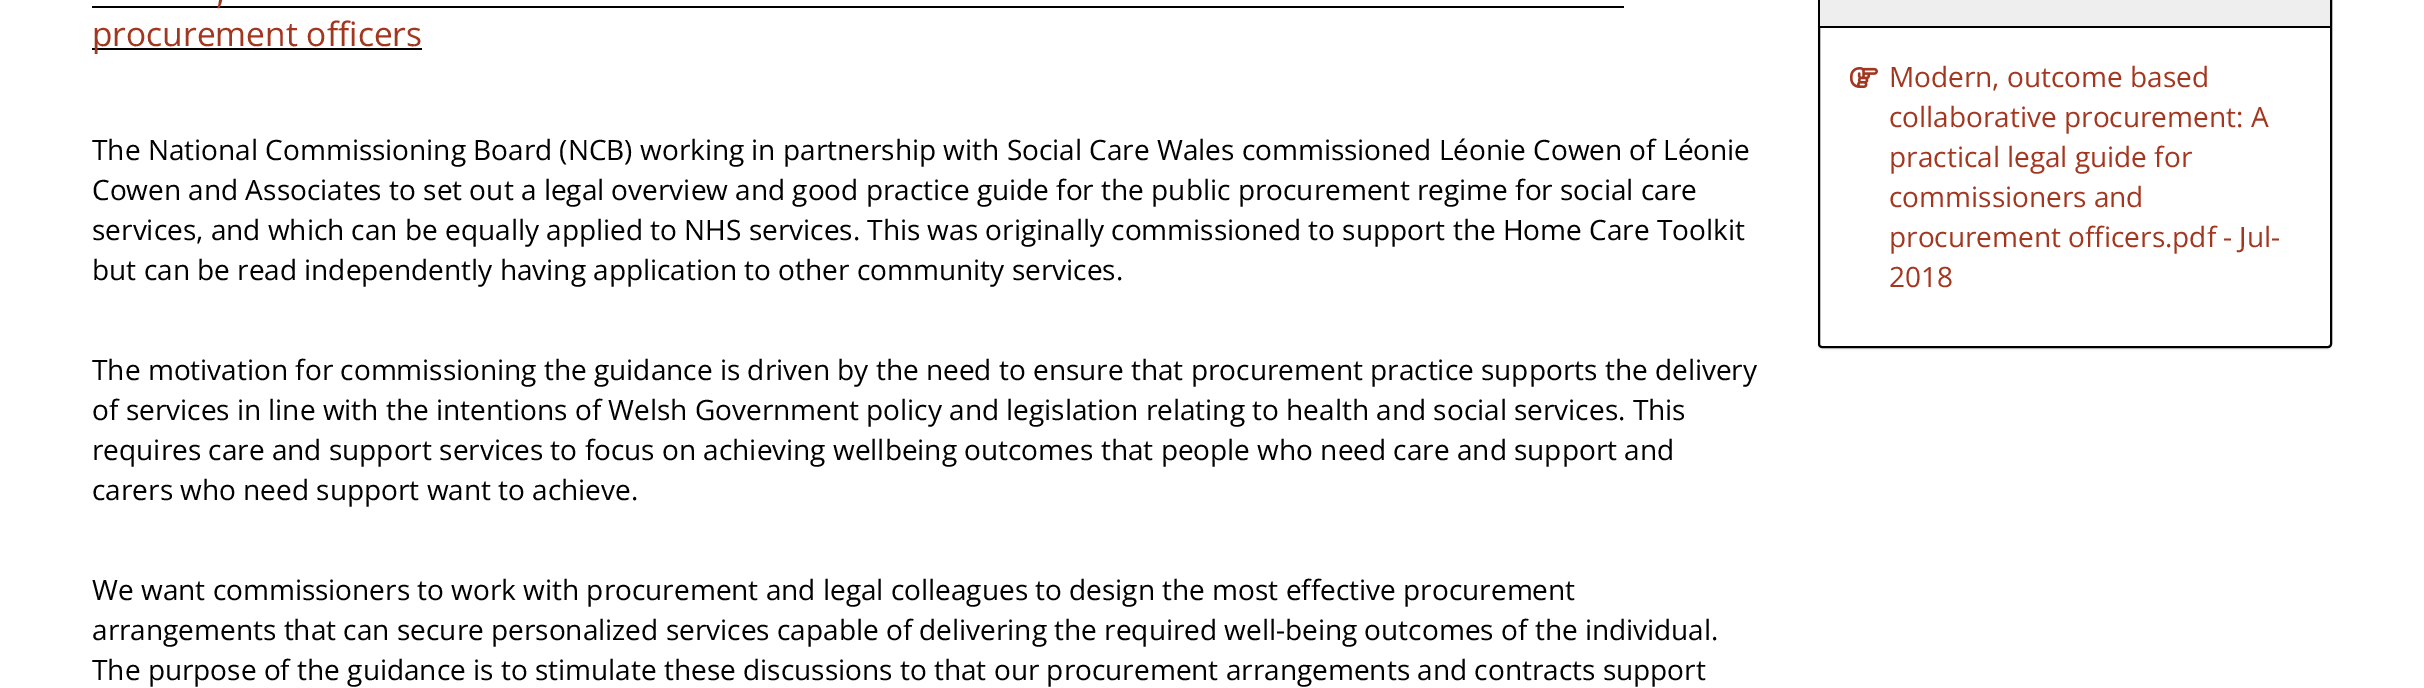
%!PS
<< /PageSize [2424 688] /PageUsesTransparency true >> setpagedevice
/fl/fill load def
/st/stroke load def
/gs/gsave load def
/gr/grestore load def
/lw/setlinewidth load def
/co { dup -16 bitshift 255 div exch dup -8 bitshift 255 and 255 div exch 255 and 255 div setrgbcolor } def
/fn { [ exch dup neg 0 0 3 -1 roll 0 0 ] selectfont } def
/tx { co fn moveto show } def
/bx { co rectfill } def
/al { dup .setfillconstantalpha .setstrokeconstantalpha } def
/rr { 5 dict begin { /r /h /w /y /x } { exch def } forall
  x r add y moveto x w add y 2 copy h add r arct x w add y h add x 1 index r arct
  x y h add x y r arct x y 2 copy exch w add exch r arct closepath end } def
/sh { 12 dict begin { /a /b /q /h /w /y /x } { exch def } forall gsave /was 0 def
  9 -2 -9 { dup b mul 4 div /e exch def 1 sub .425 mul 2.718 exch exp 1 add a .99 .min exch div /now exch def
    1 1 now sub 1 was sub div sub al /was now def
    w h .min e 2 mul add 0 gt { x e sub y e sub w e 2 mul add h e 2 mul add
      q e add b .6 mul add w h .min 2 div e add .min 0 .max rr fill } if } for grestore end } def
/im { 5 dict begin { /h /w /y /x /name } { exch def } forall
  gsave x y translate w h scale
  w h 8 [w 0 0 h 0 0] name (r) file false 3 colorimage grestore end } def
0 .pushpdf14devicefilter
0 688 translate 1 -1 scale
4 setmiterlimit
0 0 2424 688 16#FFFFFF bx
92 6 1532 2 16#000000 bx
92 48 330 2 16#000000 bx
1818 -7 514 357 4 1 .05 sh
16#FFFFFF co
1819 -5 512 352 3 rr gs fl gr
16#000000 co
2 lw
st
1820 0 510 26 16#EEEEEE bx
1820 26 510 2 16#000000 bx
(media/1.raw) 1850 67 28 21 im
(,) 216 4 /OpenSans-Regular 33.5 16#A3361F tx
(procurement officers) 92 46 /OpenSans-Regular 33.5 16#A3361F tx
(The National Commissioning Board \(NCB\) working in partnership with Social Care Wales commissioned Léonie Cowen of Léonie) 92 160 /OpenSans-Regular 28 16#000000 tx
(Cowen and Associates to set out a legal overview and good practice guide for the public procurement regime for social care) 92 200 /OpenSans-Regular 28 16#000000 tx
(services, and which can be equally applied to NHS services. This was originally commissioned to support the Home Care Toolkit) 92 240 /OpenSans-Regular 28 16#000000 tx
(but can be read independently having application to other community services.) 92 280 /OpenSans-Regular 28 16#000000 tx
(The motivation for commissioning the guidance is driven by the need to ensure that procurement practice supports the delivery) 92 380 /OpenSans-Regular 28 16#000000 tx
(of services in line with the intentions of Welsh Government policy and legislation relating to health and social services. This) 92 420 /OpenSans-Regular 28 16#000000 tx
(requires care and support services to focus on achieving wellbeing outcomes that people who need care and support and) 92 460 /OpenSans-Regular 28 16#000000 tx
(carers who need support want to achieve.) 92 500 /OpenSans-Regular 28 16#000000 tx
(We want commissioners to work with procurement and legal colleagues to design the most effective procurement) 92 600 /OpenSans-Regular 28 16#000000 tx
(arrangements that can secure personalized services capable of delivering the required well-being outcomes of the individual.) 92 640 /OpenSans-Regular 28 16#000000 tx
(The purpose of the guidance is to stimulate these discussions to that our procurement arrangements and contracts support) 92 680 /OpenSans-Regular 28 16#000000 tx
(Modern, outcome based) 1889 87 /OpenSans-Regular 28 16#A3361F tx
(collaborative procurement: A) 1889 127 /OpenSans-Regular 28 16#A3361F tx
(practical legal guide for) 1889 167 /OpenSans-Regular 28 16#A3361F tx
(commissioners and) 1889 207 /OpenSans-Regular 28 16#A3361F tx
(procurement officers.pdf - Jul-) 1889 247 /OpenSans-Regular 28 16#A3361F tx
(2018) 1889 287 /OpenSans-Regular 28 16#A3361F tx
.poppdf14devicefilter showpage
